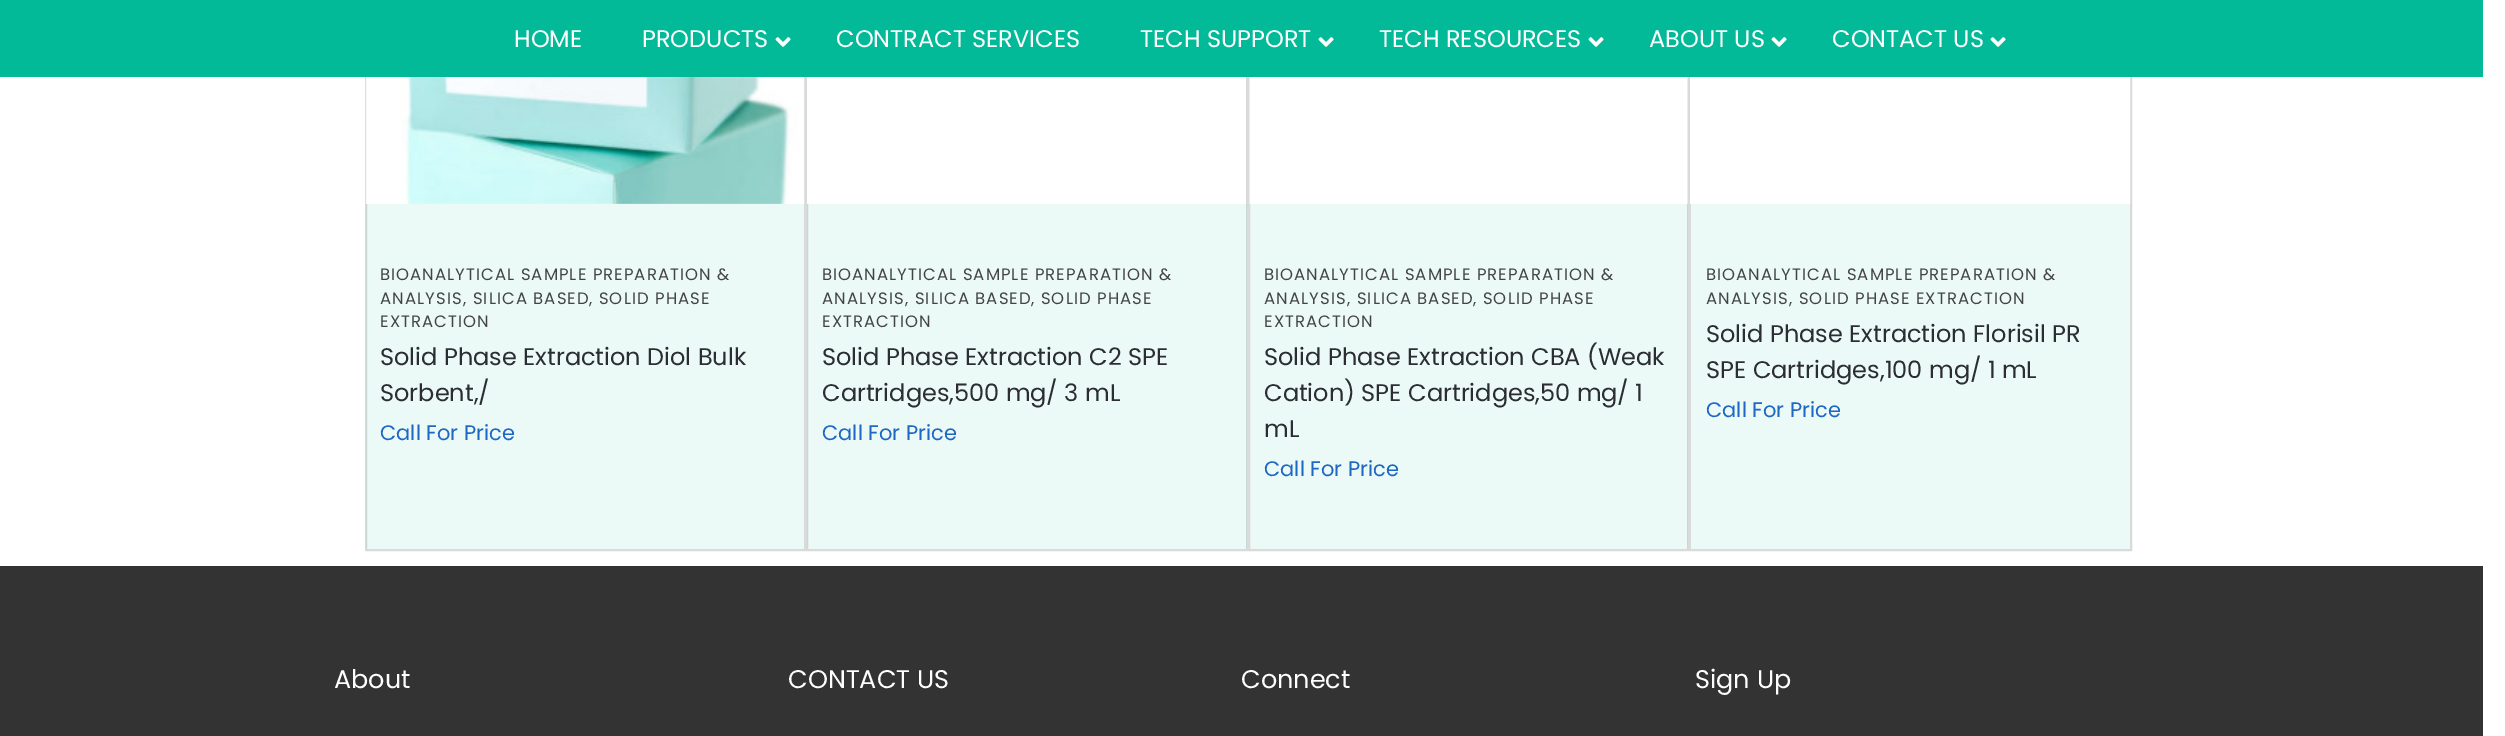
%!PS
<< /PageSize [2505 736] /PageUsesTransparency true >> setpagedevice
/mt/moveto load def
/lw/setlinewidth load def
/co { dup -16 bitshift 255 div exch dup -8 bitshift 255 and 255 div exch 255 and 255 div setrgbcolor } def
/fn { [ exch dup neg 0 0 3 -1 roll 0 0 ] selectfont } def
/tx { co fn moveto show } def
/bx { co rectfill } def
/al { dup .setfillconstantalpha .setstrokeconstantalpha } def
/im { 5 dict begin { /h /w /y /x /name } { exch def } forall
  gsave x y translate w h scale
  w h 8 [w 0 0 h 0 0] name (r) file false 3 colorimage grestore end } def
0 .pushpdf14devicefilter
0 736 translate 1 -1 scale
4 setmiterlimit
0 0 2505 736 16#FFFFFF bx
16#DADADA co
2 lw
366 -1 439 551 rectstroke
807 -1 440 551 rectstroke
1249 -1 439 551 rectstroke
1690 -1 441 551 rectstroke
0 0 2483 77 16#02B998 bx
(media/1.raw) 775 37 16 10 im
(media/1.raw) 1318 37 16 10 im
(media/1.raw) 1588 37 16 10 im
(media/1.raw) 1771 37 16 10 im
(media/1.raw) 1990 37 16 10 im
(media/2.raw) 365 77 440 127 im
0.08 al
366 204 438 345 16#02B998 bx
1 al
(media/3.raw) 807 77 403 127 im
0.08 al
807 204 440 345 16#02B998 bx
1 al
(media/4.raw) 1249 77 439 127 im
0.08 al
1250 204 438 345 16#02B998 bx
1 al
(media/5.raw) 1690 77 441 127 im
1691 204 439 345 16#EBFAF7 bx
0 566 2483 170 16#333333 bx
(HOME) 514 47 /Poppins-Regular 24 16#FFFFFF tx
(PRODUCTS) 642 47 /Poppins-Regular 24 16#FFFFFF tx
(CONTRACT SERVICES) 836 47 /Poppins-Regular 24 16#FFFFFF tx
(TECH SUPPORT) 1140 47 /Poppins-Regular 24 16#FFFFFF tx
(TECH RESOURCES) 1379 47 /Poppins-Regular 24 16#FFFFFF tx
(ABOUT US) 1649 47 /Poppins-Regular 24 16#FFFFFF tx
(CONTACT US) 1832 47 /Poppins-Regular 24 16#FFFFFF tx
/Poppins-Regular 16.5 fn
16#444444 co
380 280 mt 1.05 0 (BIOANALYTICAL SAMPLE PREPARATION &) ashow
380 304 mt 1.05 0 (ANALYSIS) ashow
463 304 mt 1.05 0 (, SILICA BASED) ashow
589 304 mt 1.05 0 (, SOLID PHASE) ashow
380 327 mt 1.05 0 (EXTRACTION) ashow
(Solid Phase Extraction Diol Bulk) 380 365 /Poppins-Regular 24 16#2C2D33 tx
(Sorbent,/) 380 401 /Poppins-Regular 24 16#2C2D33 tx
(Call For Price) 380 440 /Poppins-Regular 21 16#1E68C4 tx
/Poppins-Regular 16.5 fn
16#444444 co
822 280 mt 1.05 0 (BIOANALYTICAL SAMPLE PREPARATION &) ashow
822 304 mt 1.05 0 (ANALYSIS) ashow
905 304 mt 1.05 0 (, SILICA BASED) ashow
1031 304 mt 1.05 0 (, SOLID PHASE) ashow
822 327 mt 1.05 0 (EXTRACTION) ashow
(Solid Phase Extraction C2 SPE) 822 365 /Poppins-Regular 24 16#2C2D33 tx
(Cartridges,500 mg/ 3 mL) 822 401 /Poppins-Regular 24 16#2C2D33 tx
(Call For Price) 822 440 /Poppins-Regular 21 16#1E68C4 tx
/Poppins-Regular 16.5 fn
16#444444 co
1264 280 mt 1.05 0 (BIOANALYTICAL SAMPLE PREPARATION &) ashow
1264 304 mt 1.05 0 (ANALYSIS) ashow
1347 304 mt 1.05 0 (, SILICA BASED) ashow
1473 304 mt 1.05 0 (, SOLID PHASE) ashow
1264 327 mt 1.05 0 (EXTRACTION) ashow
(Solid Phase Extraction CBA \(Weak) 1264 365 /Poppins-Regular 24 16#2C2D33 tx
(Cation\) SPE Cartridges,50 mg/ 1) 1264 401 /Poppins-Regular 24 16#2C2D33 tx
(mL) 1264 437 /Poppins-Regular 24 16#2C2D33 tx
(Call For Price) 1264 476 /Poppins-Regular 21 16#1E68C4 tx
/Poppins-Regular 16.5 fn
16#444444 co
1706 280 mt 1.05 0 (BIOANALYTICAL SAMPLE PREPARATION &) ashow
1706 304 mt 1.05 0 (ANALYSIS) ashow
1789 304 mt 1.05 0 (, SOLID PHASE EXTRACTION) ashow
(Solid Phase Extraction Florisil PR) 1706 342 /Poppins-Regular 24 16#2C2D33 tx
(SPE Cartridges,100 mg/ 1 mL) 1706 378 /Poppins-Regular 24 16#2C2D33 tx
(Call For Price) 1706 417 /Poppins-Regular 21 16#1E68C4 tx
(About) 334 688 /Poppins-Regular 25.5 16#FFFFFF tx
(CONTACT US) 788 688 /Poppins-Regular 25.5 16#FFFFFF tx
(Connect) 1241 688 /Poppins-Regular 25.5 16#FFFFFF tx
(Sign Up) 1695 688 /Poppins-Regular 25.5 16#FFFFFF tx
.poppdf14devicefilter showpage
